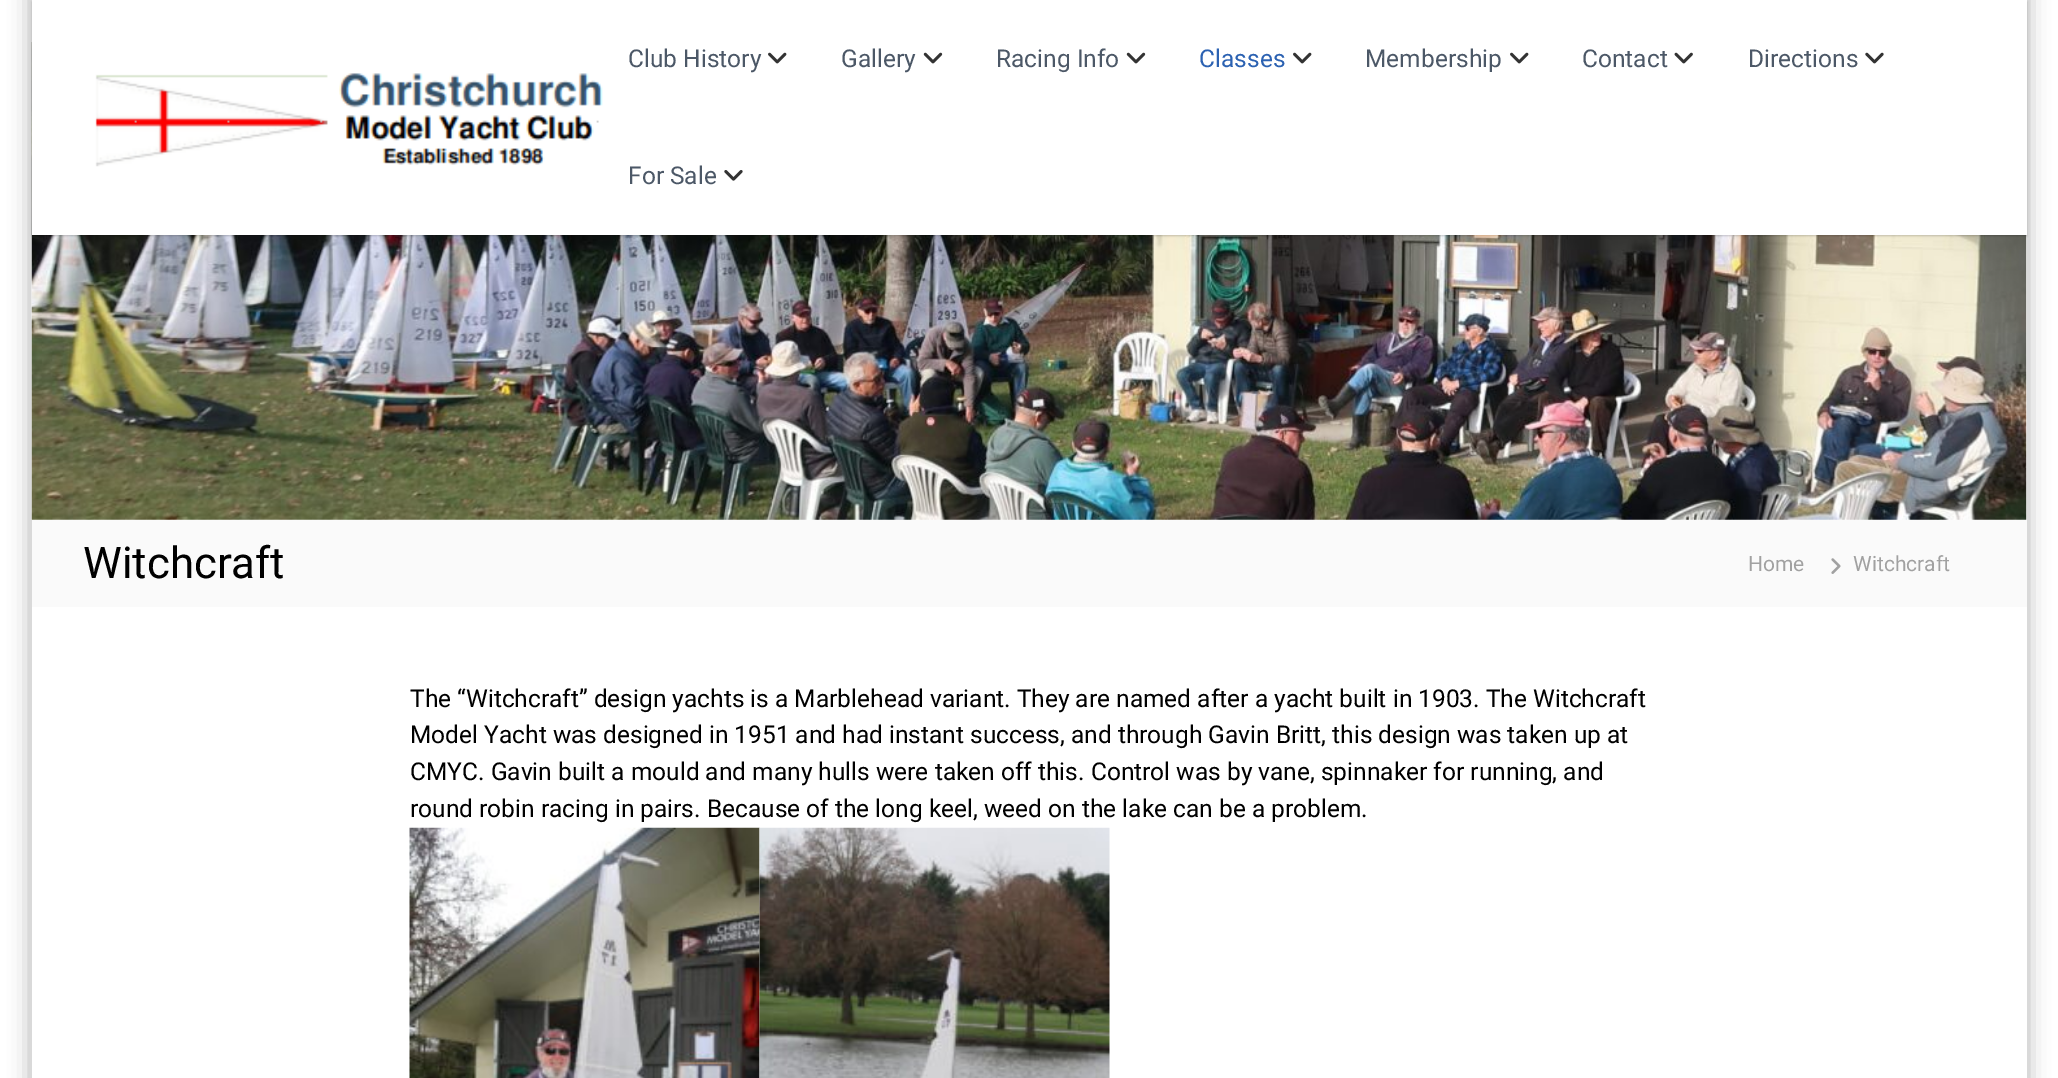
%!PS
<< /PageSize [2058 1078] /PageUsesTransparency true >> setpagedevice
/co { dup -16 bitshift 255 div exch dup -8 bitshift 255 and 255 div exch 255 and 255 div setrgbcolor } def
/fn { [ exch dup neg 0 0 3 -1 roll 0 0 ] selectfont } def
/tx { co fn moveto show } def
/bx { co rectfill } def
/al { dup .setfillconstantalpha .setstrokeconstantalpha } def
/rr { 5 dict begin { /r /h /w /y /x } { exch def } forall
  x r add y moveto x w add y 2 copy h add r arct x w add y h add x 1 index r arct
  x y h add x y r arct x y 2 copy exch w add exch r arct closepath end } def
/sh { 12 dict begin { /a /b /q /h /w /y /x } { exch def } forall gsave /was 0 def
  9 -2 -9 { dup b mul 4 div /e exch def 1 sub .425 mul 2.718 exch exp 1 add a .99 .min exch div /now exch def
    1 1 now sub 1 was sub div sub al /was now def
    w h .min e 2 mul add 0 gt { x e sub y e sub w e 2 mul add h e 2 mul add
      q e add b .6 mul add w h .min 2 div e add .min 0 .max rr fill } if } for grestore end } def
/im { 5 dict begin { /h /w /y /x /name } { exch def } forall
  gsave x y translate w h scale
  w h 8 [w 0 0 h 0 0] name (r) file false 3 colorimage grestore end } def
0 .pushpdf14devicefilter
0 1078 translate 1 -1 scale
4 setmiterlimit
0 0 2058 1078 16#FFFFFF bx
16#000000 co
30 -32 1998 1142 0 10.5 .3 sh
32 235 1995 843 16#FFFFFF bx
(media/1.raw) 31 42 1996 478 im
16#000000 co
32 2 1995 234 0 1 .2 sh
32 0 1995 235 16#FFFFFF bx
(media/2.raw) 95 73 508 94 im
(media/3.raw) 768 52 19 12 im
(media/4.raw) 923 52 20 12 im
(media/4.raw) 1126 52 20 12 im
(media/3.raw) 1293 52 19 12 im
(media/3.raw) 1510 52 19 12 im
(media/5.raw) 1674 52 19 12 im
(media/6.raw) 1865 52 19 12 im
(media/7.raw) 724 170 19 11 im
32 520 1995 87 16#FAFAFA bx
(media/8.raw) 1831 558 10 16 im
(media/9.raw) 409 827 351 251 im
(media/10.raw) 759 827 351 251 im
(Club History) 628 67 /Roboto-Regular 24.5 16#4C5867 tx
(Gallery) 841 67 /Roboto-Regular 24.5 16#4C5867 tx
(Racing Info) 996 67 /Roboto-Regular 24.5 16#4C5867 tx
(Classes) 1199 67 /Roboto-Regular 24.5 16#2C62B2 tx
(Membership) 1365 67 /Roboto-Regular 24.5 16#4C5867 tx
(Contact) 1582 67 /Roboto-Regular 24.5 16#4C5867 tx
(Directions) 1748 67 /Roboto-Regular 24.5 16#4C5867 tx
(For Sale) 628 184 /Roboto-Regular 24.5 16#4C5867 tx
(Witchcraft) 83 578 /Roboto-Regular 43.75 16#000000 tx
(Home) 1748 571 /Roboto-Regular 21 16#A1A1A1 tx
(Witchcraft) 1853 571 /Roboto-Regular 21 16#A1A1A1 tx
(The “Witchcraft” design yachts is a Marblehead variant. They are named after a yacht built in 1903. The Witchcraft) 410 707 /Roboto-Regular 24.5 16#000000 tx
(Model Yacht was designed in 1951 and had instant success, and through Gavin Britt, this design was taken up at) 410 743 /Roboto-Regular 24.5 16#000000 tx
(CMYC. Gavin built a mould and many hulls were taken off this. Control was by vane, spinnaker for running, and) 410 780 /Roboto-Regular 24.5 16#000000 tx
(round robin racing in pairs. Because of the long keel, weed on the lake can be a problem.) 410 817 /Roboto-Regular 24.5 16#000000 tx
.poppdf14devicefilter showpage
